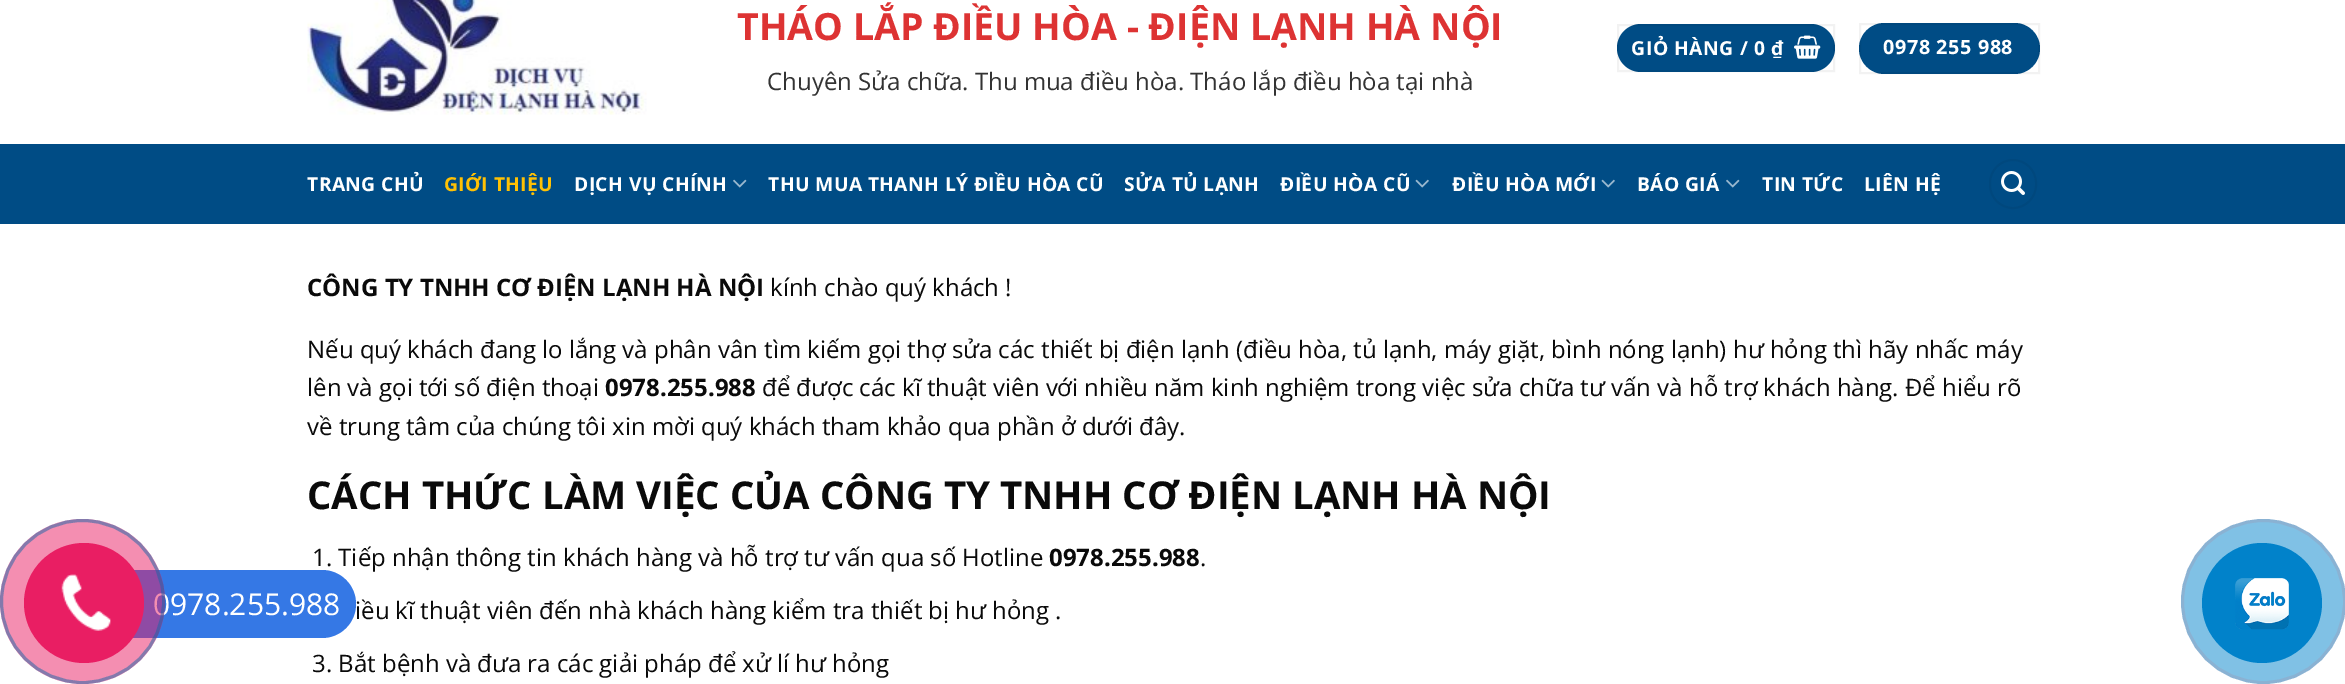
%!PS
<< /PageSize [2345 684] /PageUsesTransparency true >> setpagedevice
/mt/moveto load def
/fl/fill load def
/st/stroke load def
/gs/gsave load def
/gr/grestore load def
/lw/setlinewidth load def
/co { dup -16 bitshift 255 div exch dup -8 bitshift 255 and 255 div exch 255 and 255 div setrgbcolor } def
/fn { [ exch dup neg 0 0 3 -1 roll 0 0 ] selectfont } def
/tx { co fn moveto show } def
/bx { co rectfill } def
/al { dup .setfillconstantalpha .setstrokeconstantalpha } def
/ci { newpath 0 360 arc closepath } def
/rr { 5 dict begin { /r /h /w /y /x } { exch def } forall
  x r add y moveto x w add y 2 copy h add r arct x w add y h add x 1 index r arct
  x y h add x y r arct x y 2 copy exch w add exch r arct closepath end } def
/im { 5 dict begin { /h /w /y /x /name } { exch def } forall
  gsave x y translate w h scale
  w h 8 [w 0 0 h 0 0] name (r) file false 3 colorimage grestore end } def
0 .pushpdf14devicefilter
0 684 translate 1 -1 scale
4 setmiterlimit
0 0 2345 684 16#FFFFFF bx
(media/2.raw) 307 0 340 115 im
16#004C85 co
1617 24 218 48 24 rr fl
0.05 al
16#000000 co
2 lw
1618 25 216 46 rectstroke
1 al
(media/3.raw) 1794 35 27 24 im
16#004C85 co
1859 23 181 51 25.5 rr fl
0.05 al
16#000000 co
1860 24 179 49 rectstroke
1 al
0 144 2345 80 16#004C85 bx
(media/4.raw) 733 179 14 9 im
(media/5.raw) 1415 179 14 9 im
(media/5.raw) 1601 179 14 9 im
(media/4.raw) 1726 179 14 9 im
16#00487E co
1990 160 46 48 23 rr st
(media/6.raw) 2001 171 24 24 im
16#80C1E5 co
2263.5 601.5 81 ci gs fl gr
16#8AB2D3 co
3 lw
st
16#0182CA co
2262 603 60 ci fl
(media/7.raw) 2235 578 54 52 im
(THÁO LẮP ĐIỀU HÒA - ĐIỆN LẠNH HÀ NỘI) 737 40 /OpenSans-Bold 37.5 16#DD3333 tx
(Chuyên Sửa chữa. Thu mua điều hòa. Tháo lắp điều hòa tại nhà) 767 90 /OpenSans-Regular 24 16#333333 tx
/OpenSans-Bold 19.25 fn
16#FFFFFF co
1631 55 mt .6 0 (GIỎ HÀNG / 0 ₫) ashow
/OpenSans-Bold 19.75 fn
1883 54 mt .6 0 (0978 255 988) ashow
/OpenSans-Bold 19.25 fn
307 191 mt .4 0 (TRANG CHỦ) ashow
16#FFC104 co
444 191 mt .4 0 (GIỚI THIỆU) ashow
16#FFFFFF co
574 191 mt .4 0 (DỊCH VỤ CHÍNH) ashow
768 191 mt .4 0 (THU MUA THANH LÝ ĐIỀU HÒA CŨ) ashow
1124 191 mt .4 0 (SỬA TỦ LẠNH) ashow
1280 191 mt .4 0 (ĐIỀU HÒA CŨ) ashow
1452 191 mt .4 0 (ĐIỀU HÒA MỚI) ashow
1637 191 mt .4 0 (BÁO GIÁ) ashow
1762 191 mt .4 0 (TIN TỨC) ashow
1864 191 mt .4 0 (LIÊN HỆ) ashow
(CÔNG TY TNHH CƠ ĐIỆN LẠNH HÀ NỘI) 307 296 /OpenSans-Bold 24 16#0A0A0A tx
(kính chào quý khách !) 770 296 /OpenSans-Regular 24 16#0A0A0A tx
(Nếu quý khách đang lo lắng và phân vân tìm kiếm gọi thợ sửa các thiết bị điện lạnh \(điều hòa, tủ lạnh, máy giặt, bình nóng lạnh\) hư hỏng thì hãy nhấc máy) 307 358 /OpenSans-Regular 24 16#0A0A0A tx
(lên và gọi tới số điện thoại) 307 396 /OpenSans-Regular 24 16#0A0A0A tx
(0978.255.988) 605 396 /OpenSans-Bold 24 16#0A0A0A tx
(để được các kĩ thuật viên với nhiều năm kinh nghiệm trong việc sửa chữa tư vấn và hỗ trợ khách hàng. Để hiểu rõ) 762 396 /OpenSans-Regular 24 16#0A0A0A tx
(về trung tâm của chúng tôi xin mời quý khách tham khảo qua phần ở dưới đây.) 307 435 /OpenSans-Regular 24 16#0A0A0A tx
(CÁCH THỨC LÀM VIỆC CỦA CÔNG TY TNHH CƠ ĐIỆN LẠNH HÀ NỘI) 307 509 /OpenSans-Bold 38.4 16#0A0A0A tx
(1. Tiếp nhận thông tin khách hàng và hỗ trợ tư vấn qua số Hotline) 312 566 /OpenSans-Regular 24 16#0A0A0A tx
16#3578E5 co
78 570 278 68 34 rr fl
(0978.255.988) 153 615 /OpenSans-Regular 30 16#FFFFFF tx
0.5 al
16#E91E63 co
82.5 601.5 82.5 ci fl
16#1564A7 co
82.5 601.5 81 ci st
1 al
16#E91E63 co
84 603 60 ci fl
(media/1.raw) 61 574 50 57 im
(0978.255.988) 1049 566 /OpenSans-Bold 24 16#0A0A0A tx
(.) 1200 566 /OpenSans-Regular 24 16#0A0A0A tx
(iều kĩ thuật viên đến nhà khách hàng kiểm tra thiết bị hư hỏng .) 355 619 /OpenSans-Regular 24 16#0A0A0A tx
(3. Bắt bệnh và đưa ra các giải pháp để xử lí hư hỏng) 312 672 /OpenSans-Regular 24 16#0A0A0A tx
.poppdf14devicefilter showpage
